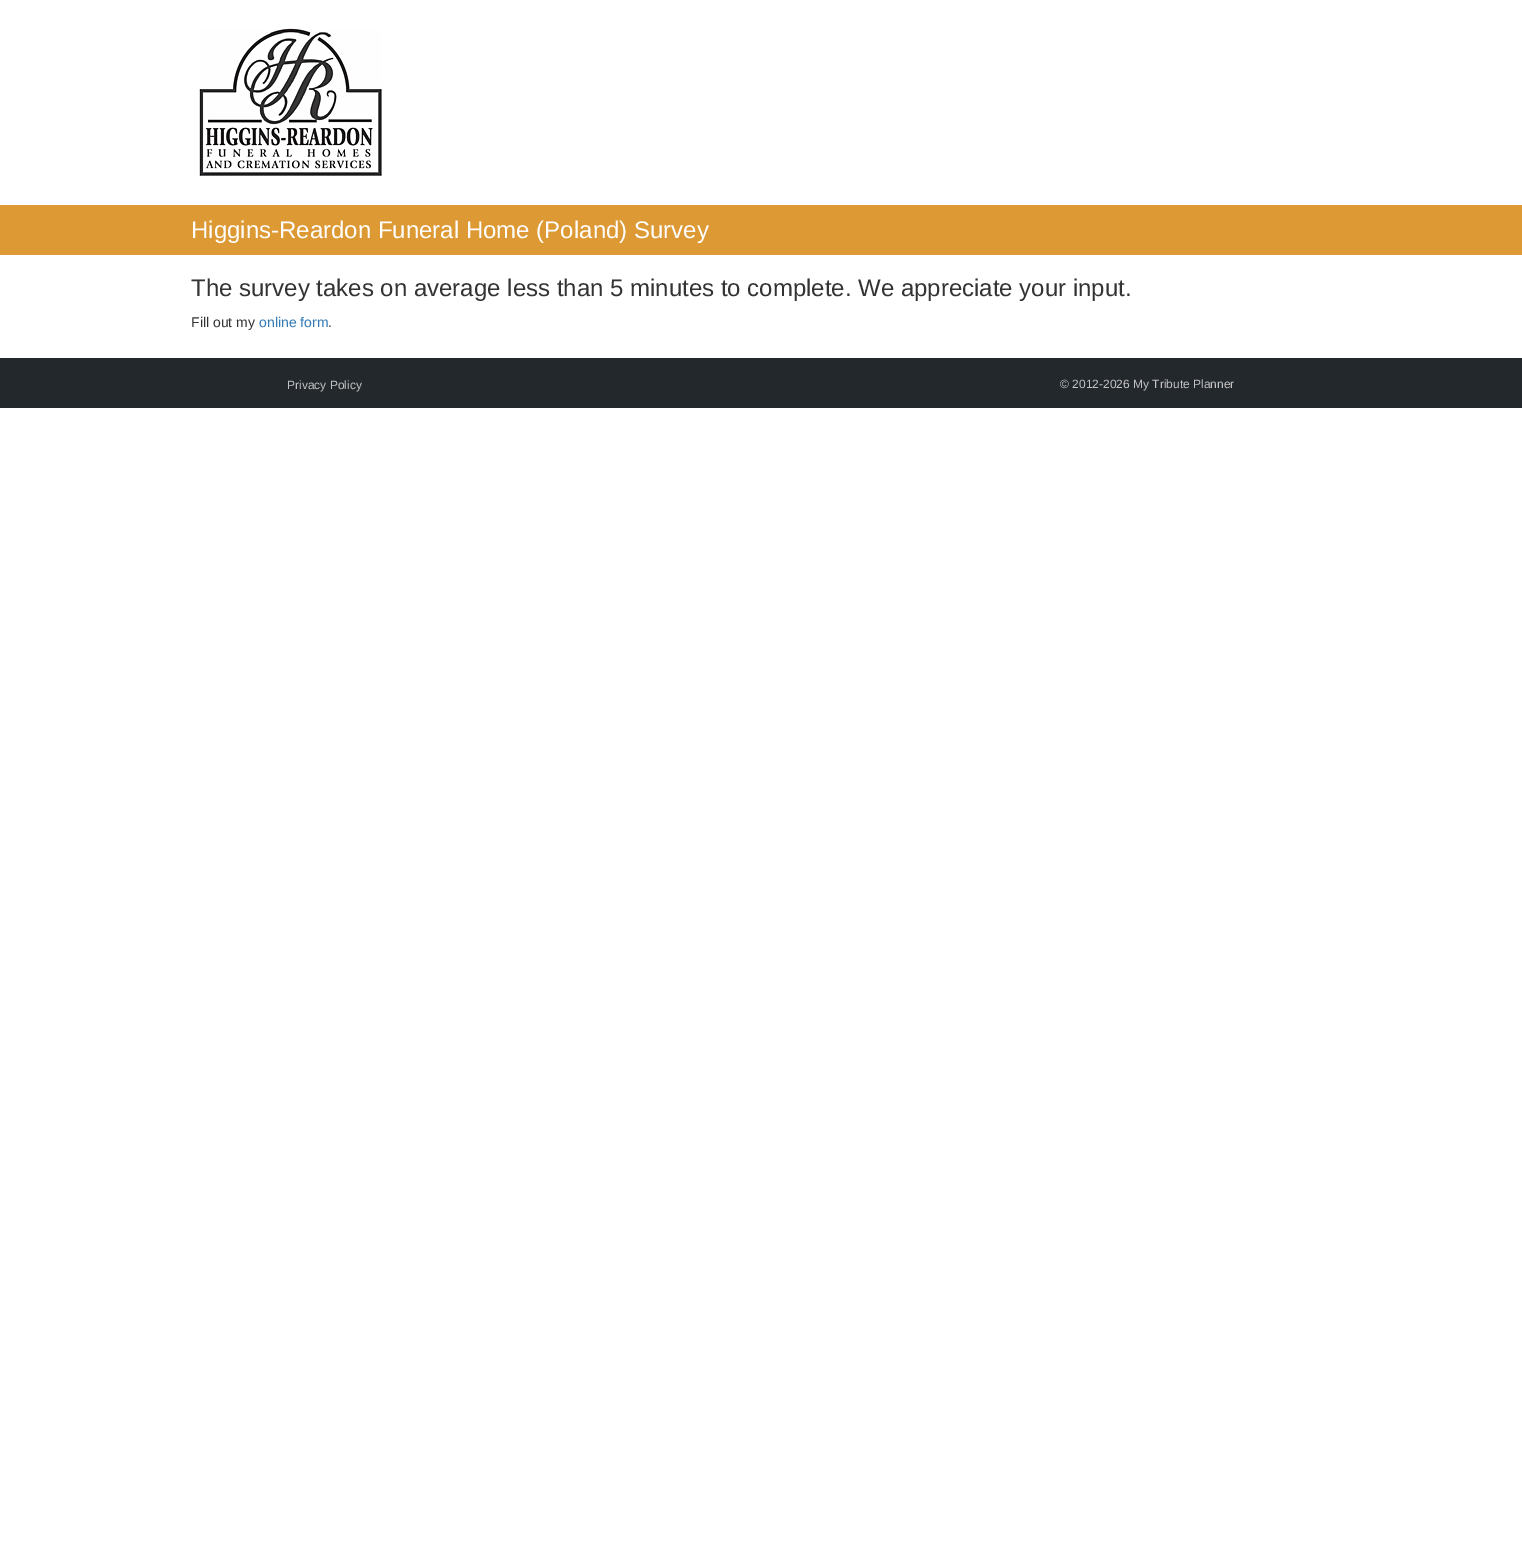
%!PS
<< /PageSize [1522 1555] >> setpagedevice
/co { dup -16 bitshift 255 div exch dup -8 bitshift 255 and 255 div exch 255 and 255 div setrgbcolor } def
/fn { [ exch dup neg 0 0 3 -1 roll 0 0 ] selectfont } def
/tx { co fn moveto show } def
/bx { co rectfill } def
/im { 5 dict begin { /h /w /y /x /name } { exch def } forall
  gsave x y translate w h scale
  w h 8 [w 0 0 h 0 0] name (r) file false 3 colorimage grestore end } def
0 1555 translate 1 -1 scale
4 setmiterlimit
0 0 1522 1555 16#FFFFFF bx
(media/1.raw) 199 28 183 148 im
0 205 1522 50 16#DD9933 bx
0 358 1522 50 16#23282D bx
(Higgins-Reardon Funeral Home \(Poland\) Survey) 191 238 /LiberationSans-Regular 24 16#FFFFFF tx
(The survey takes on average less than 5 minutes to complete. We appreciate your input.) 191 296 /LiberationSans-Regular 24 16#333333 tx
(Fill out my) 191 327 /LiberationSans-Regular 14 16#333333 tx
(online form) 259 327 /LiberationSans-Regular 14 16#337AB7 tx
(.) 328 327 /LiberationSans-Regular 14 16#333333 tx
(Privacy Policy) 287 389 /LiberationSans-Regular 12 16#C4C4C4 tx
(© 2012-2026 My Tribute Planner) 1060 388 /LiberationSans-Regular 12 16#C4C4C4 tx
showpage
